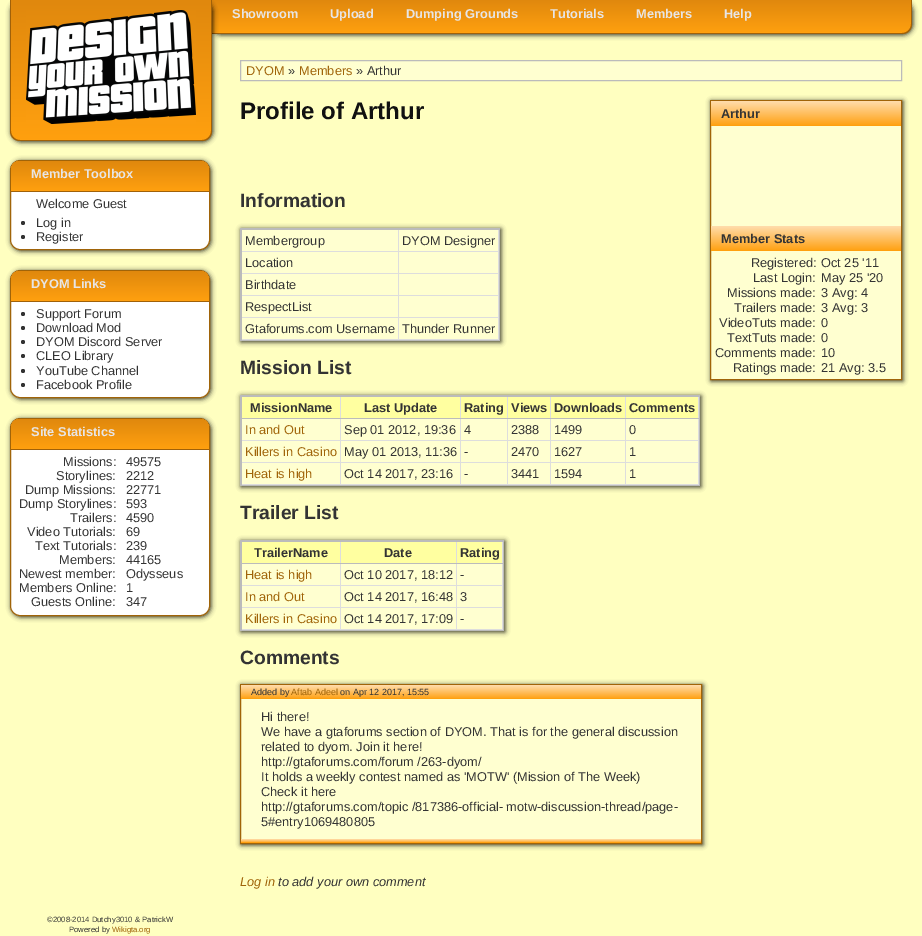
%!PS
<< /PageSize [922 936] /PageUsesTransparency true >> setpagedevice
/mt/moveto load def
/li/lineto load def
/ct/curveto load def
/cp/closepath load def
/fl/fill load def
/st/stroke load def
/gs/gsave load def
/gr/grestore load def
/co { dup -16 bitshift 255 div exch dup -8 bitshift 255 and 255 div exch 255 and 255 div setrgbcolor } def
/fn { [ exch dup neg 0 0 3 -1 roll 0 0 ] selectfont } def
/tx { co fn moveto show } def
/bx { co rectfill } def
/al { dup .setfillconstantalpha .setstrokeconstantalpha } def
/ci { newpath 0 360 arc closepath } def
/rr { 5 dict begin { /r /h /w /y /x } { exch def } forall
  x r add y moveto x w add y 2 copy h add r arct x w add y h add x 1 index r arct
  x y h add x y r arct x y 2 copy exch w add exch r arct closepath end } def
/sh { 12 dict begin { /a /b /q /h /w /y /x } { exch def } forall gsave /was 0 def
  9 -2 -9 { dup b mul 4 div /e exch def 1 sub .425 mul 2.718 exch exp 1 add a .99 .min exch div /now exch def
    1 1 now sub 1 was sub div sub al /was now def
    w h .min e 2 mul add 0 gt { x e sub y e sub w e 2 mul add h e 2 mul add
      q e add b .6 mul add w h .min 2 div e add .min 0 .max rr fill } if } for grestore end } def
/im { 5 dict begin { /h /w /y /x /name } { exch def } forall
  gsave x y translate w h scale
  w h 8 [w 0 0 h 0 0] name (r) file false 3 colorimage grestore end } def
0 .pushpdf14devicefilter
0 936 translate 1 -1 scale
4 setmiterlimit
0 0 922 936 16#FFFFC0 bx
16#000000 co
211 1 702 34 10 2.5 .8 sh
gs 210 0 mt 911 0 li 911 24 li 911 29 907 33 902 33 ct 210 33 li cp clip newpath
<< /ShadingType 2 /ColorSpace /DeviceRGB /Coords [210 0 210 33] /Extend [true true] /Function << /FunctionType 2 /Domain [0 1] /C0 [.878 .533 .051] /C1 [1 .627 .059] /N 1 >> >> shfill gr
16#A06109 co
210 0 mt 912 0 li 912 24 li 912 30 908 34 902 34 ct 210 34 li cp 210 0 mt 911 0 li 911 24 li 911 29 907 33 902 33 ct 210 33 li cp eofill
16#000000 co
11 1 202 141 10 2.5 .8 sh
gs 11 0 mt 211 0 li 211 131 li 211 136 207 140 202 140 ct 20 140 li 15 140 11 136 11 131 ct cp clip newpath
<< /ShadingType 2 /ColorSpace /DeviceRGB /Coords [11 0 11 140] /Extend [true true] /Function << /FunctionType 2 /Domain [0 1] /C0 [.878 .533 .051] /C1 [1 .627 .059] /N 1 >> >> shfill gr
16#A06109 co
10 0 mt 212 0 li 212 131 li 212 137 208 141 202 141 ct 20 141 li 14 141 10 137 10 131 ct cp 11 0 mt 211 0 li 211 131 li 211 136 207 140 202 140 ct 20 140 li 15 140 11 136 11 131 ct cp eofill
(media/1.raw) 26 10 170 114 im
16#000000 co
11 161 200 90 10 2.5 .8 sh
16#FFFFFF co
10.5 160.5 199 89 9.5 rr gs fl gr
16#A06409 co
st
gs 20 161 mt 200 161 li 205 161 209 165 209 170 ct 209 191 li 11 191 li 11 170 li 11 165 15 161 20 161 ct cp clip newpath
<< /ShadingType 2 /ColorSpace /DeviceRGB /Coords [11 161 11 191] /Extend [true true] /Function << /FunctionType 2 /Domain [0 1] /C0 [.878 .533 .051] /C1 [1 .627 .059] /N 1 >> >> shfill gr
11 191 198 1 16#A06109 bx
16#333333 co
23 223 2 ci fl
23 237 2 ci fl
16#000000 co
11 271 200 128 10 2.5 .8 sh
16#FFFFFF co
10.5 270.5 199 127 9.5 rr gs fl gr
16#A06409 co
st
gs 20 271 mt 200 271 li 205 271 209 275 209 280 ct 209 301 li 11 301 li 11 280 li 11 275 15 271 20 271 ct cp clip newpath
<< /ShadingType 2 /ColorSpace /DeviceRGB /Coords [11 271 11 301] /Extend [true true] /Function << /FunctionType 2 /Domain [0 1] /C0 [.878 .533 .051] /C1 [1 .627 .059] /N 1 >> >> shfill gr
11 301 198 1 16#A06109 bx
16#333333 co
23 314 2 ci fl
23 328 2 ci fl
23 342 2 ci fl
23 356 2 ci fl
23 371 2 ci fl
23 385 2 ci fl
16#000000 co
11 419 200 198 10 2.5 .8 sh
16#FFFFFF co
10.5 418.5 199 197 9.5 rr gs fl gr
16#A06409 co
st
gs 20 419 mt 200 419 li 205 419 209 423 209 428 ct 209 449 li 11 449 li 11 428 li 11 423 15 419 20 419 ct cp clip newpath
<< /ShadingType 2 /ColorSpace /DeviceRGB /Coords [11 419 11 449] /Extend [true true] /Function << /FunctionType 2 /Domain [0 1] /C0 [.878 .533 .051] /C1 [1 .627 .059] /N 1 >> >> shfill gr
11 449 198 1 16#A06109 bx
16#FFFFD0 co
240.5 60.5 mt 901.5 60.5 li 901.5 80.5 li 240.5 80.5 li cp gs fl gr
16#BBBBBB co
st
16#000000 co
711 101 192 280 0 2.5 .8 sh
711 126 190 253 16#FFFFD0 bx
16#A06409 co
710.5 100.5 191 279 rectstroke
gs 711 101 mt 901 101 li 901 126 li 711 126 li cp clip newpath
<< /ShadingType 2 /ColorSpace /DeviceRGB /Coords [711 101 711 126] /Extend [true true] /Function << /FunctionType 2 /Domain [0 1] /C0 [1 .867 .678] /C1 [1 .627 .059] /N 1 >> >> shfill gr
gs 711 226 mt 901 226 li 901 251 li 711 251 li cp clip newpath
<< /ShadingType 2 /ColorSpace /DeviceRGB /Coords [711 226 711 251] /Extend [true true] /Function << /FunctionType 2 /Domain [0 1] /C0 [1 .867 .678] /C1 [1 .627 .059] /N 1 >> >> shfill gr
16#000000 co
241 229 260 113 0 2.5 .8 sh
240 228 260 2 16#BBBBBB bx
499 228 1 113 16#BBBBBB bx
240 340 260 1 16#BBBBBB bx
240 228 2 113 16#BBBBBB bx
242 230 156 21 16#FFFFD0 bx
398 230 1 110 16#DDDDDD bx
242 251 157 1 16#DDDDDD bx
399 230 99 21 16#FFFFD0 bx
498 230 1 110 16#DDDDDD bx
399 251 100 1 16#DDDDDD bx
242 252 156 21 16#FFFFD0 bx
242 273 257 1 16#DDDDDD bx
399 252 99 21 16#FFFFD0 bx
242 274 156 21 16#FFFFD0 bx
242 295 257 1 16#DDDDDD bx
399 274 99 21 16#FFFFD0 bx
242 296 156 21 16#FFFFD0 bx
242 317 257 1 16#DDDDDD bx
399 296 99 21 16#FFFFD0 bx
242 318 156 21 16#FFFFD0 bx
242 339 257 1 16#DDDDDD bx
399 318 99 21 16#FFFFD0 bx
16#000000 co
241 396 460 91 0 2.5 .8 sh
240 395 460 2 16#BBBBBB bx
699 395 1 91 16#BBBBBB bx
240 485 460 1 16#BBBBBB bx
240 395 2 91 16#BBBBBB bx
242 397 98 21 16#FFFFA0 bx
340 397 1 88 16#DDDDDD bx
242 418 99 1 16#BBBBBB bx
341 397 119 21 16#FFFFA0 bx
460 397 1 88 16#DDDDDD bx
341 418 120 1 16#BBBBBB bx
461 397 46 21 16#FFFFA0 bx
507 397 1 88 16#DDDDDD bx
461 418 47 1 16#BBBBBB bx
508 397 42 21 16#FFFFA0 bx
550 397 1 88 16#DDDDDD bx
508 418 43 1 16#BBBBBB bx
551 397 74 21 16#FFFFA0 bx
625 397 1 88 16#DDDDDD bx
551 418 75 1 16#BBBBBB bx
626 397 72 21 16#FFFFA0 bx
698 397 1 88 16#DDDDDD bx
626 418 73 1 16#BBBBBB bx
242 419 98 21 16#FFFFD0 bx
242 440 457 1 16#DDDDDD bx
341 419 119 21 16#FFFFD0 bx
461 419 46 21 16#FFFFD0 bx
508 419 42 21 16#FFFFD0 bx
551 419 74 21 16#FFFFD0 bx
626 419 72 21 16#FFFFD0 bx
242 441 98 21 16#FFFFD0 bx
242 462 457 1 16#DDDDDD bx
341 441 119 21 16#FFFFD0 bx
461 441 46 21 16#FFFFD0 bx
508 441 42 21 16#FFFFD0 bx
551 441 74 21 16#FFFFD0 bx
626 441 72 21 16#FFFFD0 bx
242 463 98 21 16#FFFFD0 bx
242 484 457 1 16#DDDDDD bx
341 463 119 21 16#FFFFD0 bx
461 463 46 21 16#FFFFD0 bx
508 463 42 21 16#FFFFD0 bx
551 463 74 21 16#FFFFD0 bx
626 463 72 21 16#FFFFD0 bx
16#000000 co
241 541 264 91 0 2.5 .8 sh
240 540 264 2 16#BBBBBB bx
503 540 1 91 16#BBBBBB bx
240 630 264 1 16#BBBBBB bx
240 540 2 91 16#BBBBBB bx
242 542 98 21 16#FFFFA0 bx
340 542 1 88 16#DDDDDD bx
242 563 99 1 16#BBBBBB bx
341 542 115 21 16#FFFFA0 bx
456 542 1 88 16#DDDDDD bx
341 563 116 1 16#BBBBBB bx
457 542 45 21 16#FFFFA0 bx
502 542 1 88 16#DDDDDD bx
457 563 46 1 16#BBBBBB bx
242 564 98 21 16#FFFFD0 bx
242 585 261 1 16#DDDDDD bx
341 564 115 21 16#FFFFD0 bx
457 564 45 21 16#FFFFD0 bx
242 586 98 21 16#FFFFD0 bx
242 607 261 1 16#DDDDDD bx
341 586 115 21 16#FFFFD0 bx
457 586 45 21 16#FFFFD0 bx
242 608 98 21 16#FFFFD0 bx
242 629 261 1 16#DDDDDD bx
341 608 115 21 16#FFFFD0 bx
457 608 45 21 16#FFFFD0 bx
16#000000 co
241 685 462 160 0 2.5 .8 sh
241 699 460 140 16#FFFFD0 bx
16#A06409 co
240.5 684.5 461 159 rectstroke
gs 241 685 mt 701 685 li 701 699 li 241 699 li cp clip newpath
<< /ShadingType 2 /ColorSpace /DeviceRGB /Coords [241 685 241 699] /Extend [true true] /Function << /FunctionType 2 /Domain [0 1] /C0 [1 .867 .678] /C1 [1 .627 .059] /N 1 >> >> shfill gr
gs 241 839 mt 701 839 li 701 843 li 241 843 li cp clip newpath
<< /ShadingType 2 /ColorSpace /DeviceRGB /Coords [241 839 241 843] /Extend [true true] /Function << /FunctionType 2 /Domain [0 1] /C0 [1 .867 .678] /C1 [1 .627 .059] /N 1 >> >> shfill gr
(Showroom) 232 18 /LiberationSans-Bold 12.8 16#E7E5E5 tx
(Upload) 330 18 /LiberationSans-Bold 12.8 16#E7E5E5 tx
(Dumping Grounds) 406 18 /LiberationSans-Bold 12.8 16#E7E5E5 tx
(Tutorials) 550 18 /LiberationSans-Bold 12.8 16#E7E5E5 tx
(Members) 636 18 /LiberationSans-Bold 12.8 16#E7E5E5 tx
(Help) 724 18 /LiberationSans-Bold 12.8 16#E7E5E5 tx
(Member Toolbox) 31 178 /LiberationSans-Bold 12.8 16#E7E5E5 tx
(Welcome Guest) 36 208 /LiberationSans-Regular 12.8 16#333333 tx
(Log in) 36 227 /LiberationSans-Regular 12.8 16#333333 tx
(Register) 36 241 /LiberationSans-Regular 12.8 16#333333 tx
(DYOM Links) 31 288 /LiberationSans-Bold 12.8 16#E7E5E5 tx
(Support Forum) 36 318 /LiberationSans-Regular 12.8 16#333333 tx
(Download Mod) 36 332 /LiberationSans-Regular 12.8 16#333333 tx
(DYOM Discord Server) 36 346 /LiberationSans-Regular 12.8 16#333333 tx
(CLEO Library) 36 360 /LiberationSans-Regular 12.8 16#333333 tx
(YouTube Channel) 36 375 /LiberationSans-Regular 12.8 16#333333 tx
(Facebook Profile) 36 389 /LiberationSans-Regular 12.8 16#333333 tx
(Site Statistics) 31 436 /LiberationSans-Bold 12.8 16#E7E5E5 tx
(Missions:) 63 466 /LiberationSans-Regular 12.8 16#333333 tx
(49575) 126 466 /LiberationSans-Regular 12.8 16#333333 tx
(Storylines:) 56 480 /LiberationSans-Regular 12.8 16#333333 tx
(2212) 126 480 /LiberationSans-Regular 12.8 16#333333 tx
(Dump Missions:) 25 494 /LiberationSans-Regular 12.8 16#333333 tx
(22771) 126 494 /LiberationSans-Regular 12.8 16#333333 tx
(Dump Storylines:) 19 508 /LiberationSans-Regular 12.8 16#333333 tx
(593) 126 508 /LiberationSans-Regular 12.8 16#333333 tx
(Trailers:) 70 522 /LiberationSans-Regular 12.8 16#333333 tx
(4590) 126 522 /LiberationSans-Regular 12.8 16#333333 tx
(Video Tutorials:) 27 536 /LiberationSans-Regular 12.8 16#333333 tx
(69) 126 536 /LiberationSans-Regular 12.8 16#333333 tx
(Text Tutorials:) 35 550 /LiberationSans-Regular 12.8 16#333333 tx
(239) 126 550 /LiberationSans-Regular 12.8 16#333333 tx
(Members:) 59 564 /LiberationSans-Regular 12.8 16#333333 tx
(44165) 126 564 /LiberationSans-Regular 12.8 16#333333 tx
(Newest member:) 19 578 /LiberationSans-Regular 12.8 16#333333 tx
(Odysseus) 126 578 /LiberationSans-Regular 12.8 16#333333 tx
(Members Online:) 19 592 /LiberationSans-Regular 12.8 16#333333 tx
(1) 126 592 /LiberationSans-Regular 12.8 16#333333 tx
(Guests Online:) 31 606 /LiberationSans-Regular 12.8 16#333333 tx
(347) 126 606 /LiberationSans-Regular 12.8 16#333333 tx
(©2008-2014 Dutchy3010 & PatrickW) 47 922 /LiberationSans-Regular 7.7 16#333333 tx
(Powered by) 69 932 /LiberationSans-Regular 7.7 16#333333 tx
(Wikigta.org) 112 932 /LiberationSans-Regular 7.7 16#A06409 tx
(DYOM) 246 75 /LiberationSans-Regular 12.8 16#A06409 tx
(») 288 75 /LiberationSans-Regular 12.8 16#333333 tx
(Members) 299 75 /LiberationSans-Regular 12.8 16#A06409 tx
(» Arthur) 356 75 /LiberationSans-Regular 12.8 16#333333 tx
(Profile of Arthur) 240 119 /LiberationSans-Bold 24 16#111111 tx
(Arthur) 721 118 /LiberationSans-Bold 12.8 16#333333 tx
(Member Stats) 721 243 /LiberationSans-Bold 12.8 16#333333 tx
(Registered:) 751 267 /LiberationSans-Regular 12.8 16#333333 tx
(Oct 25 '11) 821 267 /LiberationSans-Regular 12.8 16#333333 tx
(Last Login:) 753 282 /LiberationSans-Regular 12.8 16#333333 tx
(May 25 '20) 821 282 /LiberationSans-Regular 12.8 16#333333 tx
(Missions made:) 727 297 /LiberationSans-Regular 12.8 16#333333 tx
(3 Avg: 4) 821 297 /LiberationSans-Regular 12.8 16#333333 tx
(Trailers made:) 734 312 /LiberationSans-Regular 12.8 16#333333 tx
(3 Avg: 3) 821 312 /LiberationSans-Regular 12.8 16#333333 tx
(VideoTuts made:) 719 327 /LiberationSans-Regular 12.8 16#333333 tx
(0) 821 327 /LiberationSans-Regular 12.8 16#333333 tx
(TextTuts made:) 727 342 /LiberationSans-Regular 12.8 16#333333 tx
(0) 821 342 /LiberationSans-Regular 12.8 16#333333 tx
(Comments made:) 715 357 /LiberationSans-Regular 12.8 16#333333 tx
(10) 821 357 /LiberationSans-Regular 12.8 16#333333 tx
(Ratings made:) 733 372 /LiberationSans-Regular 12.8 16#333333 tx
(21 Avg: 3.5) 821 372 /LiberationSans-Regular 12.8 16#333333 tx
(Information) 240 207 /LiberationSans-Bold 19.25 16#333333 tx
(Membergroup) 245 245 /LiberationSans-Regular 12.8 16#333333 tx
(DYOM Designer) 402 245 /LiberationSans-Regular 12.8 16#333333 tx
(Location) 245 267 /LiberationSans-Regular 12.8 16#333333 tx
(Birthdate) 245 289 /LiberationSans-Regular 12.8 16#333333 tx
(RespectList) 245 311 /LiberationSans-Regular 12.8 16#333333 tx
(Gtaforums.com Username) 245 333 /LiberationSans-Regular 12.8 16#333333 tx
(Thunder Runner) 402 333 /LiberationSans-Regular 12.8 16#333333 tx
(Mission List) 240 374 /LiberationSans-Bold 19.25 16#333333 tx
(MissionName) 250 412 /LiberationSans-Bold 12.8 16#333333 tx
(Last Update) 364 412 /LiberationSans-Bold 12.8 16#333333 tx
(Rating) 464 412 /LiberationSans-Bold 12.8 16#333333 tx
(Views) 511 412 /LiberationSans-Bold 12.8 16#333333 tx
(Downloads) 554 412 /LiberationSans-Bold 12.8 16#333333 tx
(Comments) 629 412 /LiberationSans-Bold 12.8 16#333333 tx
(In and Out) 245 434 /LiberationSans-Regular 12.8 16#A06409 tx
(Sep 01 2012, 19:36) 344 434 /LiberationSans-Regular 12.8 16#333333 tx
(4) 464 434 /LiberationSans-Regular 12.8 16#333333 tx
(2388) 511 434 /LiberationSans-Regular 12.8 16#333333 tx
(1499) 554 434 /LiberationSans-Regular 12.8 16#333333 tx
(0) 629 434 /LiberationSans-Regular 12.8 16#333333 tx
(Killers in Casino) 245 456 /LiberationSans-Regular 12.8 16#A06409 tx
(May 01 2013, 11:36) 344 456 /LiberationSans-Regular 12.8 16#333333 tx
(-) 464 456 /LiberationSans-Regular 12.8 16#333333 tx
(2470) 511 456 /LiberationSans-Regular 12.8 16#333333 tx
(1627) 554 456 /LiberationSans-Regular 12.8 16#333333 tx
(1) 629 456 /LiberationSans-Regular 12.8 16#333333 tx
(Heat is high) 245 478 /LiberationSans-Regular 12.8 16#A06409 tx
(Oct 14 2017, 23:16) 344 478 /LiberationSans-Regular 12.8 16#333333 tx
(-) 464 478 /LiberationSans-Regular 12.8 16#333333 tx
(3441) 511 478 /LiberationSans-Regular 12.8 16#333333 tx
(1594) 554 478 /LiberationSans-Regular 12.8 16#333333 tx
(1) 629 478 /LiberationSans-Regular 12.8 16#333333 tx
(Trailer List) 240 519 /LiberationSans-Bold 19.25 16#333333 tx
(TrailerName) 254 557 /LiberationSans-Bold 12.8 16#333333 tx
(Date) 384 557 /LiberationSans-Bold 12.8 16#333333 tx
(Rating) 460 557 /LiberationSans-Bold 12.8 16#333333 tx
(Heat is high) 245 579 /LiberationSans-Regular 12.8 16#A06409 tx
(Oct 10 2017, 18:12) 344 579 /LiberationSans-Regular 12.8 16#333333 tx
(-) 460 579 /LiberationSans-Regular 12.8 16#333333 tx
(In and Out) 245 601 /LiberationSans-Regular 12.8 16#A06409 tx
(Oct 14 2017, 16:48) 344 601 /LiberationSans-Regular 12.8 16#333333 tx
(3) 460 601 /LiberationSans-Regular 12.8 16#333333 tx
(Killers in Casino) 245 623 /LiberationSans-Regular 12.8 16#A06409 tx
(Oct 14 2017, 17:09) 344 623 /LiberationSans-Regular 12.8 16#333333 tx
(-) 460 623 /LiberationSans-Regular 12.8 16#333333 tx
(Comments) 240 664 /LiberationSans-Bold 19.25 16#333333 tx
(Added by) 251 695 /LiberationSans-Regular 9 16#333333 tx
(Aftab Adeel) 291 695 /LiberationSans-Regular 9 16#A06409 tx
(on Apr 12 2017, 15:55) 340 695 /LiberationSans-Regular 9 16#333333 tx
(Hi there!) 261 721 /LiberationSans-Regular 12.8 16#333333 tx
(We have a gtaforums section of DYOM. That is for the general discussion) 261 736 /LiberationSans-Regular 12.8 16#333333 tx
(related to dyom. Join it here!) 261 751 /LiberationSans-Regular 12.8 16#333333 tx
(http://gtaforums.com/forum /263-dyom/) 261 766 /LiberationSans-Regular 12.8 16#333333 tx
(It holds a weekly contest named as 'MOTW' \(Mission of The Week\)) 261 781 /LiberationSans-Regular 12.8 16#333333 tx
(Check it here) 261 796 /LiberationSans-Regular 12.8 16#333333 tx
(http://gtaforums.com/topic /817386-official- motw-discussion-thread/page-) 261 811 /LiberationSans-Regular 12.8 16#333333 tx
(5#entry1069480805) 261 826 /LiberationSans-Regular 12.8 16#333333 tx
(Log in) 240 886 /LiberationSans-Italic 12.8 16#A06409 tx
(to add your own comment) 278 886 /LiberationSans-Italic 12.8 16#333333 tx
.poppdf14devicefilter showpage
